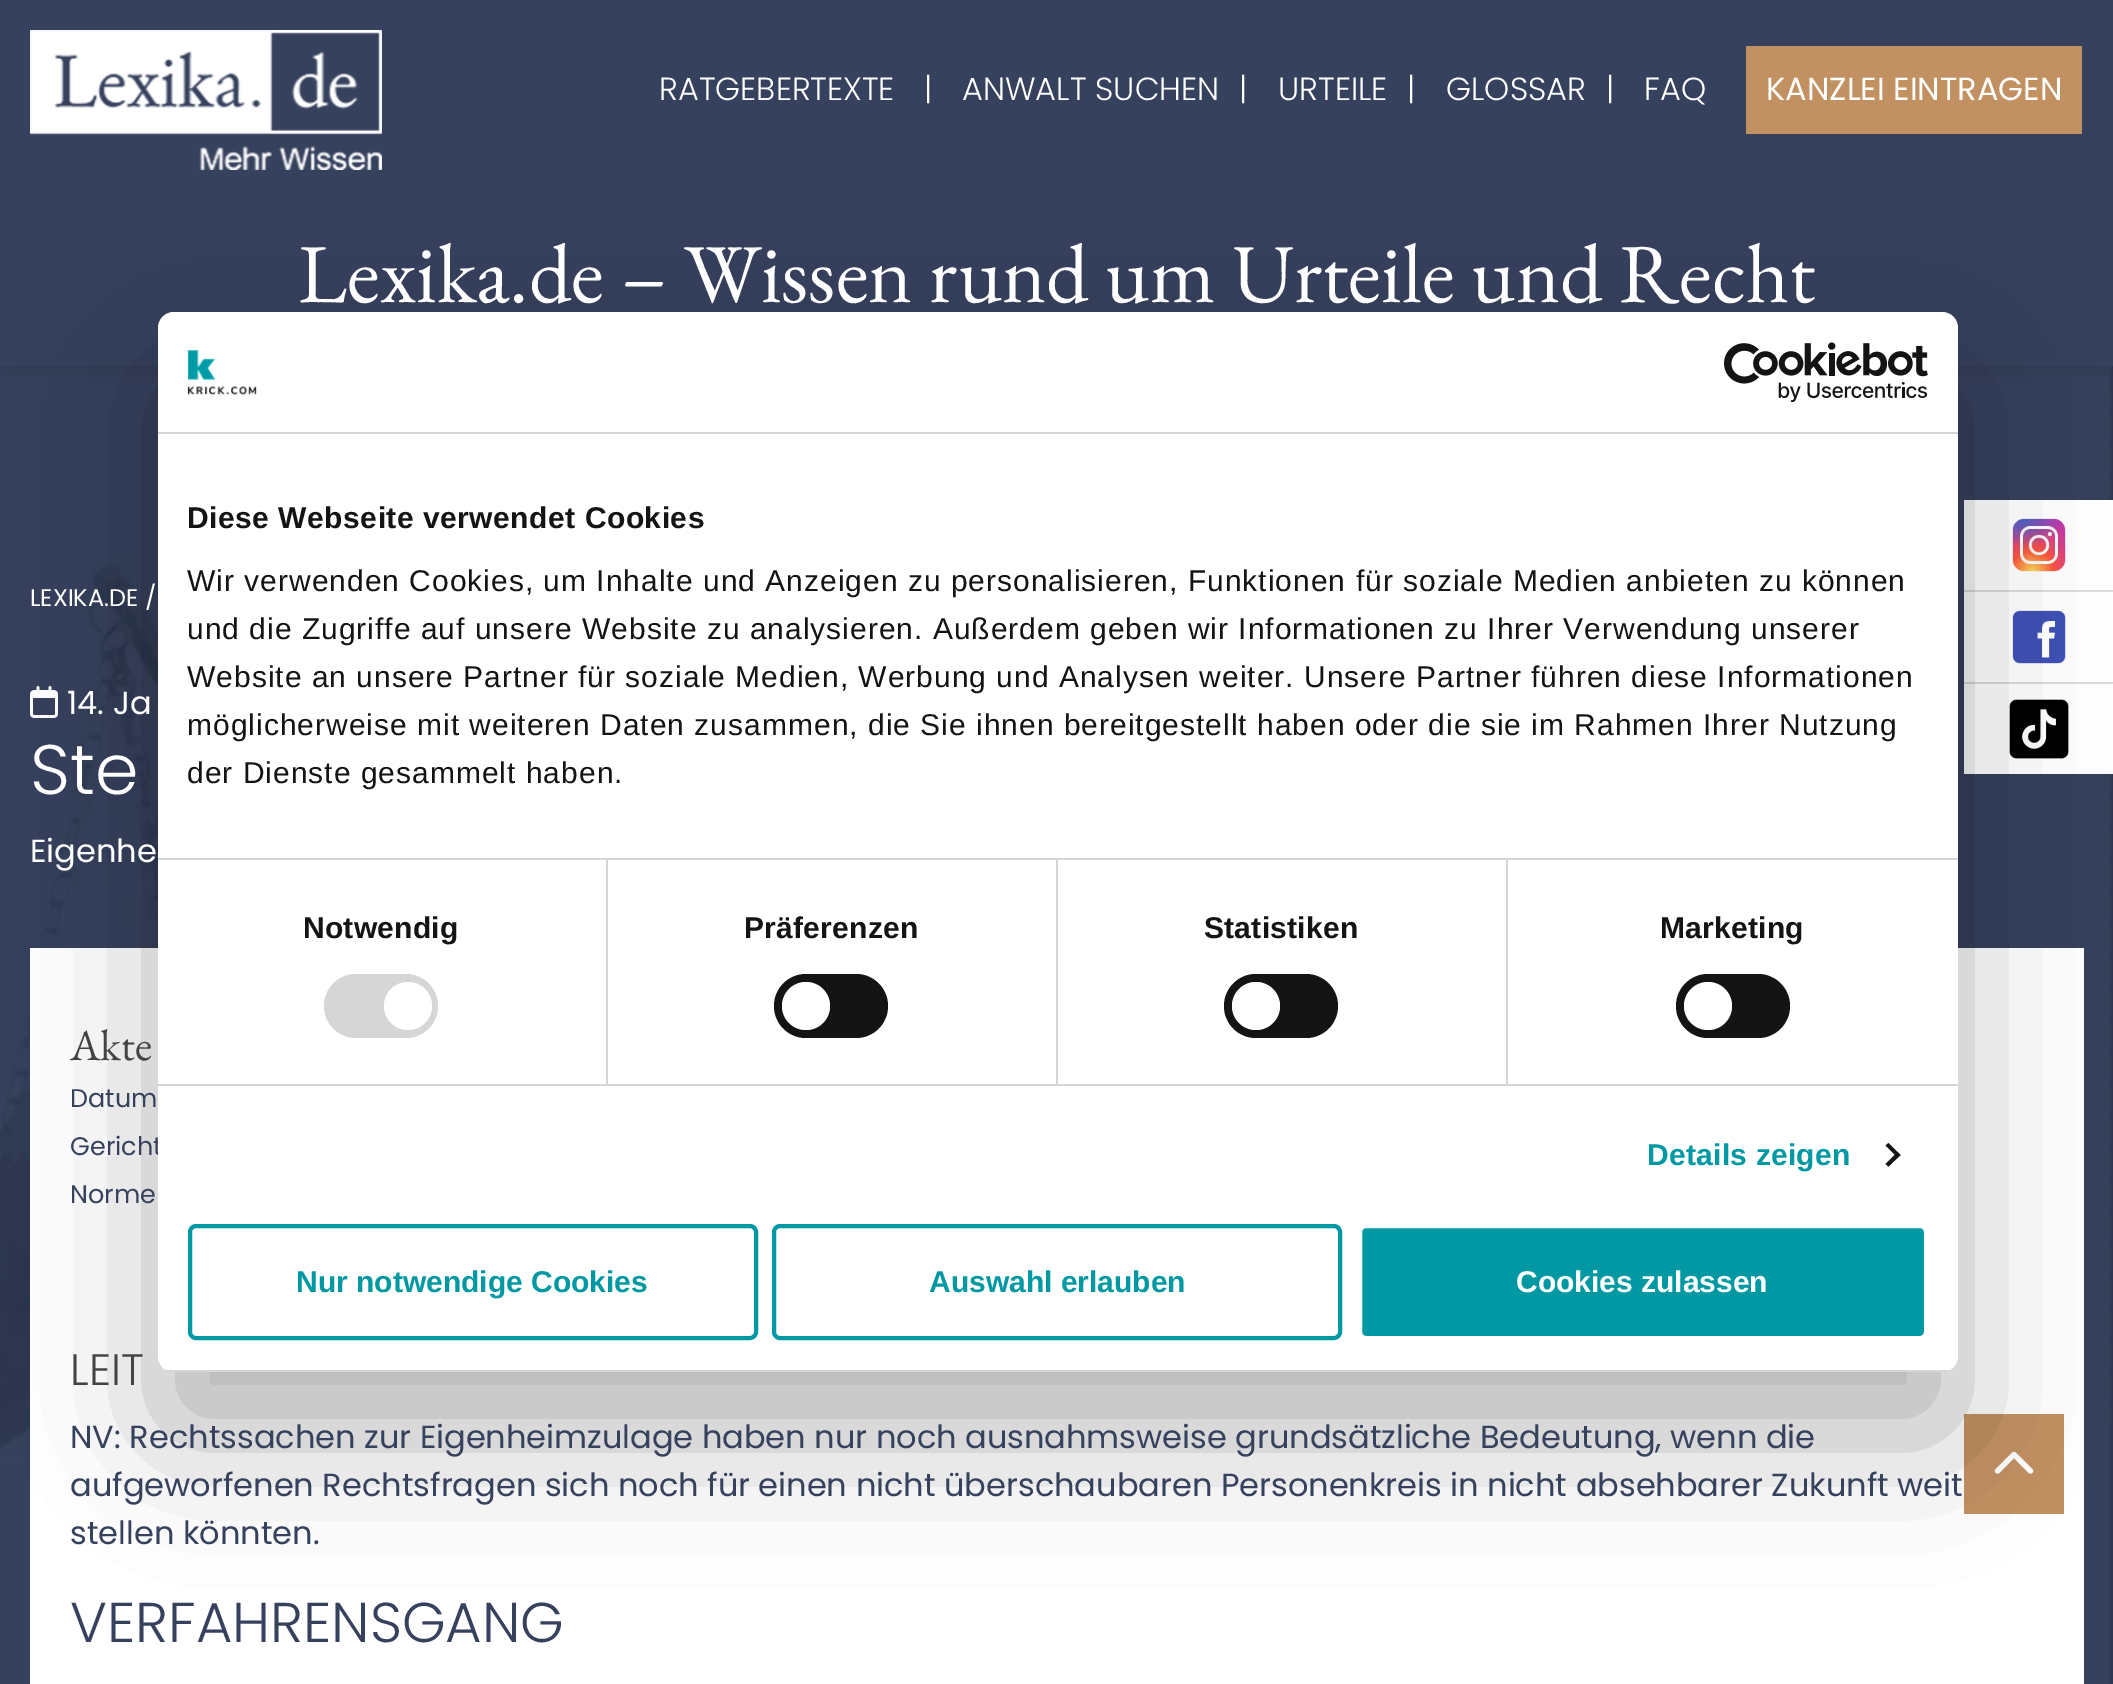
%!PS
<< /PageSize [2113 1684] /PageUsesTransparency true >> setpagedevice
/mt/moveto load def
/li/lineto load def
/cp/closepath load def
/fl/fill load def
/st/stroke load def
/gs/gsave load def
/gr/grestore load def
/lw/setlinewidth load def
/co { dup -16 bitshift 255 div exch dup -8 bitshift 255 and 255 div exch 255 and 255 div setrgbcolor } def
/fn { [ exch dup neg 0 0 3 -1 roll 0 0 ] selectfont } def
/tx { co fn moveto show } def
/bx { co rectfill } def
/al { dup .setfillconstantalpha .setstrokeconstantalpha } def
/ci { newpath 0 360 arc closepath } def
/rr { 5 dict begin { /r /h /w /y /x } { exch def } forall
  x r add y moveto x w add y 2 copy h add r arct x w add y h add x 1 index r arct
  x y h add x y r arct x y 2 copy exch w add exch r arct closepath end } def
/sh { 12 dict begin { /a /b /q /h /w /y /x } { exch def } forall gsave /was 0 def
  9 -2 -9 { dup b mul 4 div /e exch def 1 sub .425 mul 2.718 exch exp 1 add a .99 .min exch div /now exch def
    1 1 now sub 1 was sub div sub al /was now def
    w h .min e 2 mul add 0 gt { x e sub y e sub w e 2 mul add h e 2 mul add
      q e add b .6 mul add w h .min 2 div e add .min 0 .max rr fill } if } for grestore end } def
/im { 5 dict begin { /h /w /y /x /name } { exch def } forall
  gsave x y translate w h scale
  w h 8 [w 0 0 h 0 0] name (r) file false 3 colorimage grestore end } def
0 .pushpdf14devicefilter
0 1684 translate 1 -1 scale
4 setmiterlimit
0 0 2113 1684 16#FFFFFF bx
(media/1.raw) 0 366 2113 1318 im
16#000000 co
0 8 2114 366 0 6 .1 sh
0 0 2113 366 16#36415D bx
(media/2.raw) 30 30 352 140 im
1746 46 336 88 16#C29162 bx
(media/3.raw) 30 686 28 32 im
30 948 2054 736 16#FFFFFF bx
1964 500 149 274 16#FFFFFF bx
1964 590 149 2 16#DCDCDC bx
(media/4.raw) 2012 518 54 54 im
(media/5.raw) 2012 610 54 54 im
1964 682 149 2 16#DCDCDC bx
(media/6.raw) 2009 699 60 60 im
1964 1414 100 100 16#C29162 bx
(media/9.raw) 1994 1451 40 23 im
16#000000 co
158 376 1800 1060 16 68 .3 sh
(RATGEBERTEXTE) 659 100 /Poppins-Light 32 16#FFFFFF tx
(|) 924 100 /Poppins-Light 32 16#FFFFFF tx
(ANWALT SUCHEN) 962 100 /Poppins-Light 32 16#FFFFFF tx
(|) 1239 100 /Poppins-Light 32 16#FFFFFF tx
(URTEILE) 1278 100 /Poppins-Light 32 16#FFFFFF tx
(|) 1407 100 /Poppins-Light 32 16#FFFFFF tx
(GLOSSAR) 1446 100 /Poppins-Light 32 16#FFFFFF tx
(|) 1606 100 /Poppins-Light 32 16#FFFFFF tx
(FAQ) 1644 100 /Poppins-Light 32 16#FFFFFF tx
(KANZLEI EINTRAGEN) 1766 100 /Poppins-Regular 32 16#FFFFFF tx
(Lexika.de – Wissen rund um Urteile und Recht) 298 302 /EBGaramond-Regular 84 16#FFFFFF tx
(LEXIKA.DE /) 30 606 /Poppins-Regular 24 16#FFFFFF tx
(14. Ja) 67 714 /Poppins-Regular 32 16#FFFFFF tx
(Ste) 30 794 /Poppins-Light 70 16#FFFFFF tx
(Eigenhe) 30 862 /Poppins-Regular 32 16#FFFFFF tx
(Akte) 70 1060 /EBGaramond-Regular 44 16#434343 tx
(Datum) 70 1107 /Poppins-Regular 25.5 16#36415D tx
(Gericht) 70 1155 /Poppins-Regular 25.5 16#36415D tx
(Norme) 70 1203 /Poppins-Regular 25.5 16#36415D tx
(LEIT) 70 1385 /Poppins-Light 44 16#434343 tx
(NV: Rechtssachen zur Eigenheimzulage haben nur noch ausnahmsweise grundsätzliche Bedeutung, wenn die) 70 1448 /Poppins-Regular 32 16#36415D tx
(aufgeworfenen Rechtsfragen sich noch für einen nicht überschaubaren Personenkreis in nicht absehbarer Zukunft weit) 70 1496 /Poppins-Regular 32 16#36415D tx
(stellen könnten.) 70 1544 /Poppins-Regular 32 16#36415D tx
(VERFAHRENSGANG) 70 1642 /Poppins-Light 56 16#36415D tx
16#FFFFFF co
158 312 1800 1060 16 rr fl
158 432 1800 2 16#D6D6D6 bx
(media/7.raw) 187 350 70 45 im
(media/8.raw) 1724 342 204 60 im
158 858 1800 2 16#D6D6D6 bx
/LiberationSans-Bold 30 fn
16#141414 co
187 528 mt .5 0 (Diese Webseite verwendet Cookies) ashow
/LiberationSans-Regular 30 fn
187 591 mt 1 0 (Wir verwenden Cookies, um Inhalte und Anzeigen zu personalisieren, Funktionen für soziale Medien anbieten zu können) ashow
187 639 mt 1 0 (und die Zugriffe auf unsere Website zu analysieren. Außerdem geben wir Informationen zu Ihrer Verwendung unserer) ashow
187 687 mt 1 0 (Website an unsere Partner für soziale Medien, Werbung und Analysen weiter. Unsere Partner führen diese Informationen) ashow
187 735 mt 1 0 (möglicherweise mit weiteren Daten zusammen, die Sie ihnen bereitgestellt haben oder die sie im Rahmen Ihrer Nutzung) ashow
187 783 mt 1 0 (der Dienste gesammelt haben.) ashow
158 1084 1800 2 16#D6D6D6 bx
606 860 2 224 16#D6D6D6 bx
/LiberationSans-Bold 30 fn
16#141414 co
303 938 mt .25 0 (Notwendig) ashow
16#D6D6D6 co
324 974 114 64 32 rr fl
16#FFFFFF co
408 1006 24 ci fl
1056 860 2 224 16#D6D6D6 bx
16#141414 co
744 938 mt .25 0 (Präferenzen) ashow
774 974 114 64 32 rr fl
16#FFFFFF co
806 1006 24 ci fl
1506 860 2 224 16#D6D6D6 bx
16#141414 co
1204 938 mt .25 0 (Statistiken) ashow
1224 974 114 64 32 rr fl
16#FFFFFF co
1256 1006 24 ci fl
16#141414 co
1660 938 mt .25 0 (Marketing) ashow
1676 974 114 64 32 rr fl
16#FFFFFF co
1708 1006 24 ci fl
16#0098A2 co
1647 1165 mt .25 0 (Details zeigen) ashow
16#141414 co
1888.5 1143 mt 1900.5 1155 li 1897.5 1157.5 li 1885.5 1145.5 li cp fl
1897.5 1152 mt 1900.5 1155 li 1888.5 1166.5 li 1885.5 1164 li cp fl
gs
158 312 1800 1060 16 rr clip newpath
158 1370 1800 2 16#D6D6D6 bx
gr
16#0098A2 co
4 lw
190 1226 566 112 6 rr st
(Nur notwendige Cookies) 296 1292 /LiberationSans-Bold 30 16#0098A2 tx
774 1226 566 112 6 rr st
(Auswahl erlauben) 929 1292 /LiberationSans-Bold 30 16#0098A2 tx
1360 1226 566 112 6 rr gs fl gr
16#FFFFFF co
st
(Cookies zulassen) 1516 1292 /LiberationSans-Bold 30 16#FFFFFF tx
.poppdf14devicefilter showpage
